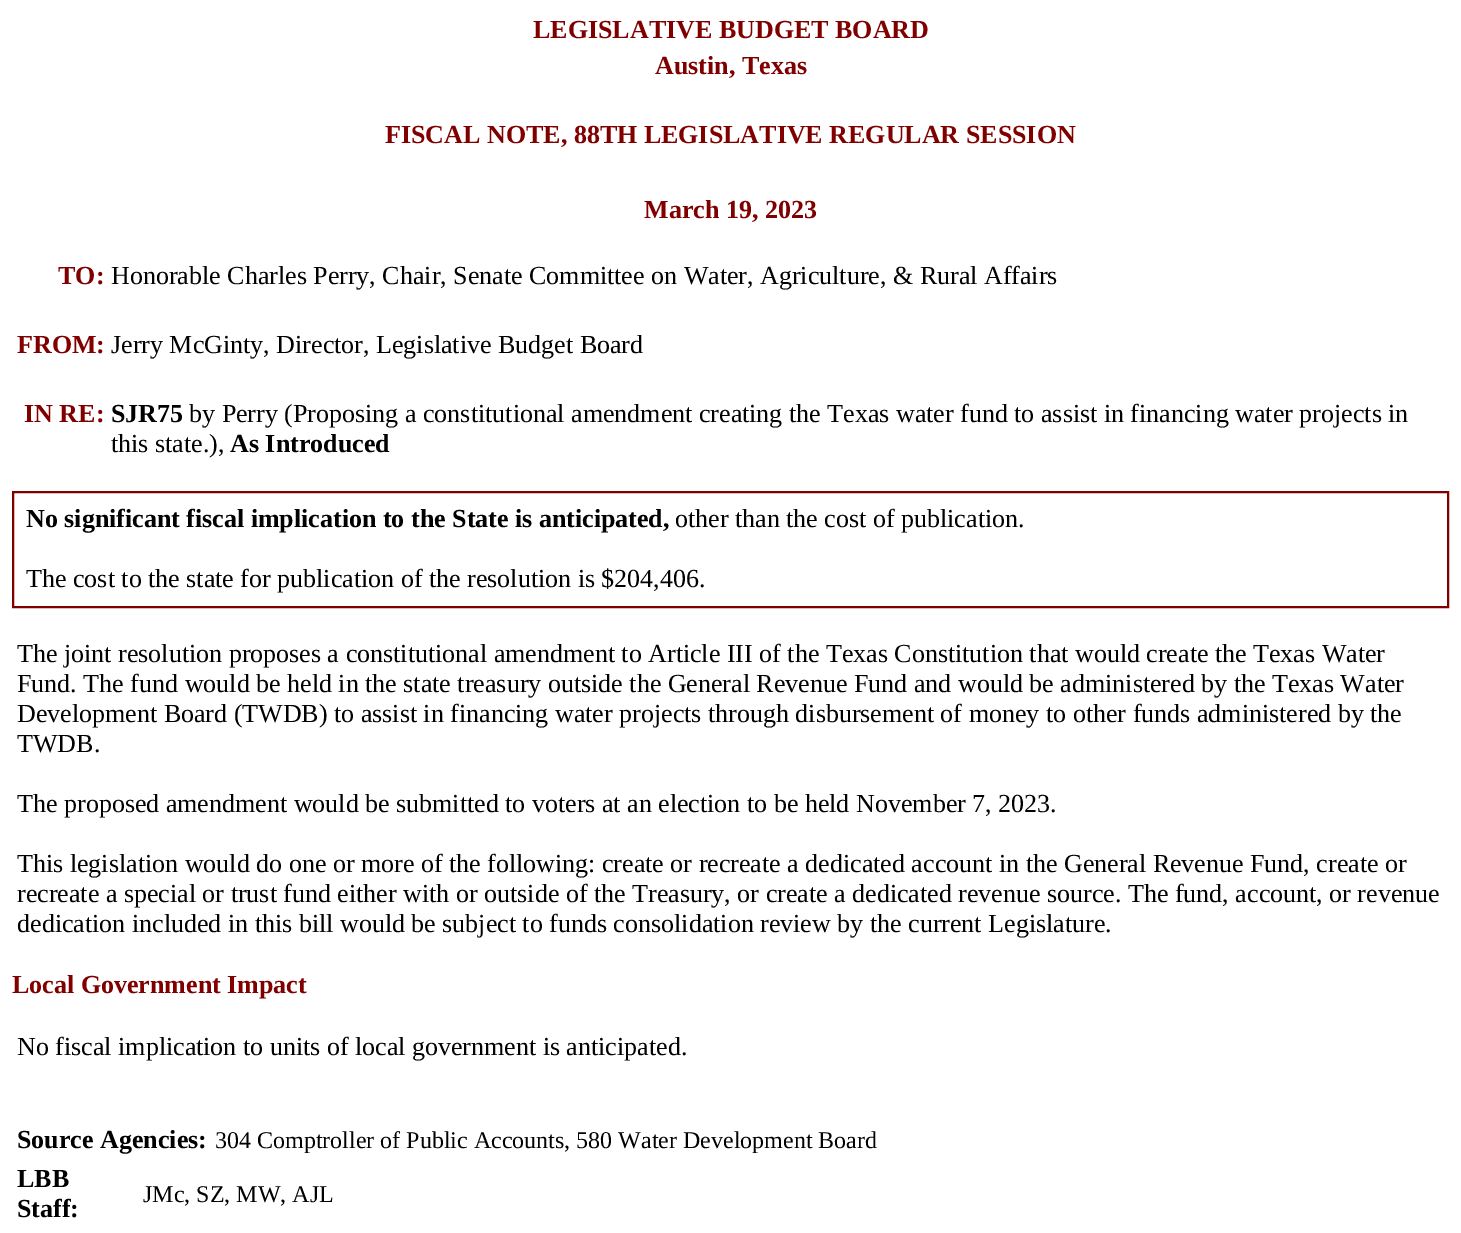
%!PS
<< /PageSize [1461 1233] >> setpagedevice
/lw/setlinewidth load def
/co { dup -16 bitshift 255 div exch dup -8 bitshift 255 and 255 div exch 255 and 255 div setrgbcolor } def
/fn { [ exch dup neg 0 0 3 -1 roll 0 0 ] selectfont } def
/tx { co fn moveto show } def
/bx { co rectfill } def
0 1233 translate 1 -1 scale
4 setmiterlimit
0 0 1461 1233 16#FFFFFF bx
16#800000 co
2 lw
13 492 1435 115 rectstroke
(LEGISLATIVE BUDGET BOARD) 533 38 /LiberationSerif-Bold 26 16#800000 tx
(Austin, Texas) 655 74 /LiberationSerif-Bold 26 16#800000 tx
(FISCAL NOTE, 88TH LEGISLATIVE REGULAR SESSION) 385 143 /LiberationSerif-Bold 26 16#800000 tx
(March 19, 2023) 644 218 /LiberationSerif-Bold 26 16#800000 tx
(TO:) 58 284 /LiberationSerif-Bold 26 16#800000 tx
(Honorable Charles Perry, Chair, Senate Committee on Water, Agriculture, & Rural Affairs) 111 284 /LiberationSerif-Regular 26 16#000000 tx
(FROM:) 17 353 /LiberationSerif-Bold 26 16#800000 tx
(Jerry McGinty, Director, Legislative Budget Board) 111 353 /LiberationSerif-Regular 26 16#000000 tx
(IN RE:) 24 422 /LiberationSerif-Bold 26 16#800000 tx
(SJR75) 111 422 /LiberationSerif-Bold 26 16#000000 tx
(by Perry \(Proposing a constitutional amendment creating the Texas water fund to assist in financing water projects in) 189 422 /LiberationSerif-Regular 26 16#000000 tx
(this state.\),) 111 452 /LiberationSerif-Regular 26 16#000000 tx
(As Introduced) 230 452 /LiberationSerif-Bold 26 16#000000 tx
(No significant fiscal implication to the State is anticipated,) 26 527 /LiberationSerif-Bold 26 16#000000 tx
(other than the cost of publication.) 675 527 /LiberationSerif-Regular 26 16#000000 tx
(The cost to the state for publication of the resolution is $204,406.) 26 587 /LiberationSerif-Regular 26 16#000000 tx
(The joint resolution proposes a constitutional amendment to Article III of the Texas Constitution that would create the Texas Water) 17 662 /LiberationSerif-Regular 26 16#000000 tx
(Fund. The fund would be held in the state treasury outside the General Revenue Fund and would be administered by the Texas Water) 17 692 /LiberationSerif-Regular 26 16#000000 tx
(Development Board \(TWDB\) to assist in financing water projects through disbursement of money to other funds administered by the) 17 722 /LiberationSerif-Regular 26 16#000000 tx
(TWDB.) 17 752 /LiberationSerif-Regular 26 16#000000 tx
(The proposed amendment would be submitted to voters at an election to be held November 7, 2023.) 17 812 /LiberationSerif-Regular 26 16#000000 tx
(This legislation would do one or more of the following: create or recreate a dedicated account in the General Revenue Fund, create or) 17 872 /LiberationSerif-Regular 26 16#000000 tx
(recreate a special or trust fund either with or outside of the Treasury, or create a dedicated revenue source. The fund, account, or revenue) 17 902 /LiberationSerif-Regular 26 16#000000 tx
(dedication included in this bill would be subject to funds consolidation review by the current Legislature.) 17 932 /LiberationSerif-Regular 26 16#000000 tx
(Local Government Impact) 12 993 /LiberationSerif-Bold 26 16#800000 tx
(No fiscal implication to units of local government is anticipated.) 17 1055 /LiberationSerif-Regular 26 16#000000 tx
(Source Agencies:) 17 1148 /LiberationSerif-Bold 26 16#000000 tx
(304 Comptroller of Public Accounts, 580 Water Development Board) 215 1148 /LiberationSerif-Regular 24 16#000000 tx
(LBB) 17 1187 /LiberationSerif-Bold 26 16#000000 tx
(Staff:) 17 1217 /LiberationSerif-Bold 26 16#000000 tx
(JMc, SZ, MW, AJL) 143 1202 /LiberationSerif-Regular 24 16#000000 tx
showpage
